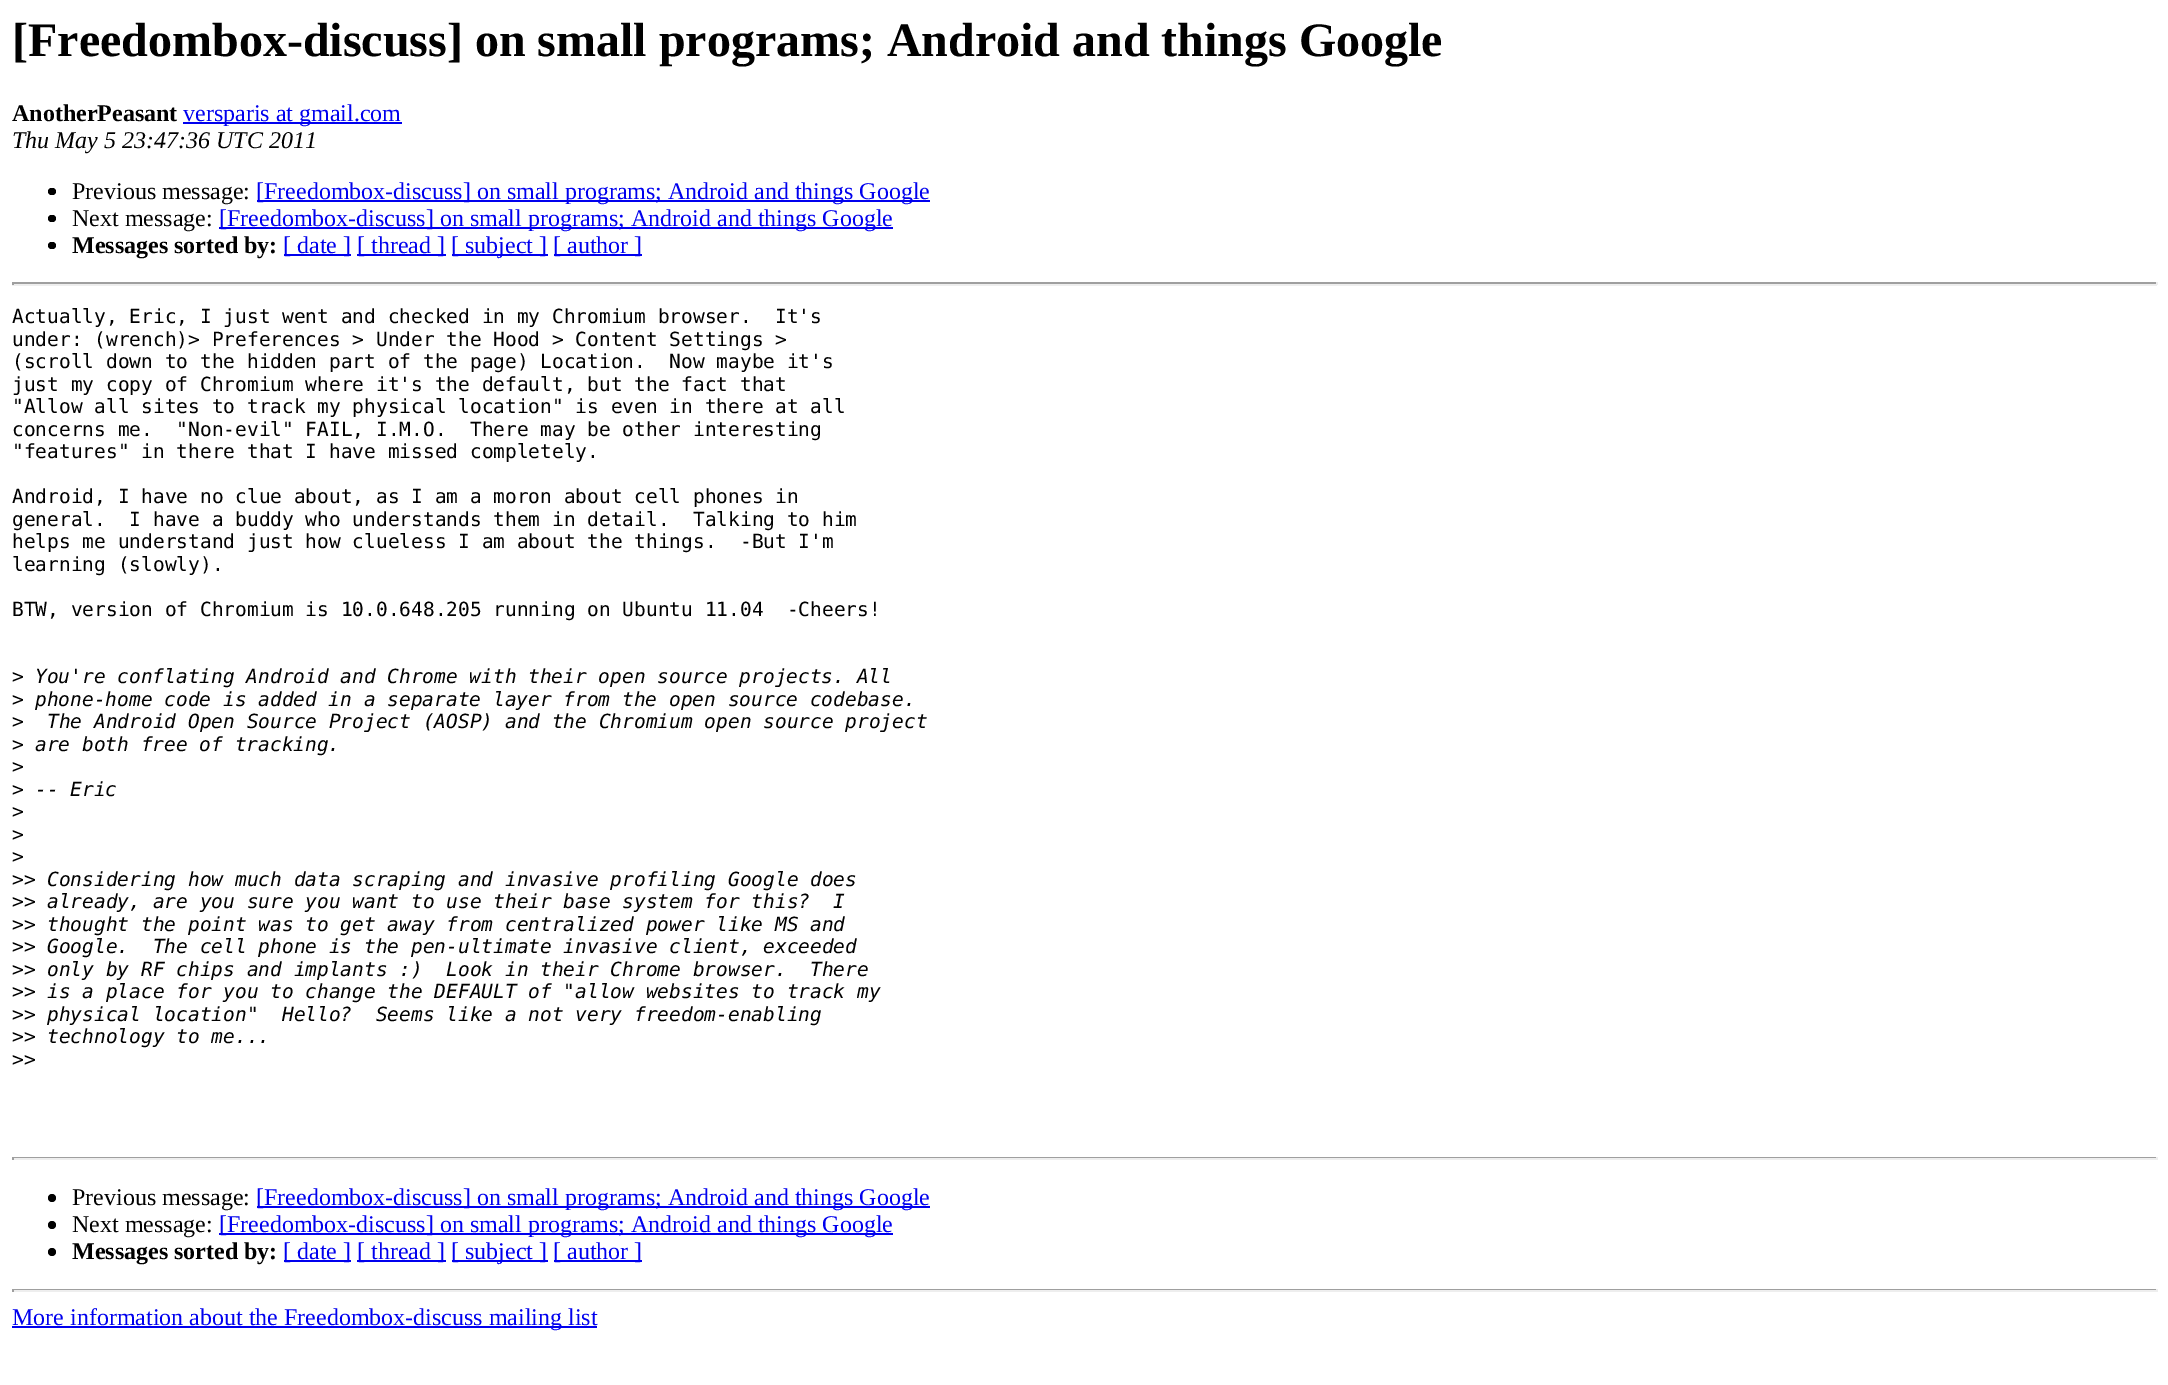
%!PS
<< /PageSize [2168 1385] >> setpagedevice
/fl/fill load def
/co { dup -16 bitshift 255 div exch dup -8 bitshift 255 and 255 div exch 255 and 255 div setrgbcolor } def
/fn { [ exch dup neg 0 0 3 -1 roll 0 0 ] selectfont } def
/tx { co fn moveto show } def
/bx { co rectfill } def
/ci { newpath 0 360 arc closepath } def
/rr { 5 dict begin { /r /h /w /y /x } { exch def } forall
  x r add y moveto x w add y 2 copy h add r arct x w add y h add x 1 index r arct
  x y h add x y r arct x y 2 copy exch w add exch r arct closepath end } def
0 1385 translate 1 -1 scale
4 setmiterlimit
0 0 2168 1385 16#FFFFFF bx
183 122 219 2 16#0000EE bx
16#000000 co
48 188 8 7 3.5 rr fl
257 200 673 2 16#0000EE bx
16#000000 co
48 215 8 7 3.5 rr fl
219 227 674 2 16#0000EE bx
16#000000 co
48 242 8 7 3.5 rr fl
284 254 67 2 16#0000EE bx
357 254 89 2 16#0000EE bx
452 254 96 2 16#0000EE bx
554 254 88 2 16#0000EE bx
12 282 2145 2 16#9F9F9F bx
2156 282 2 3 16#EEEEEE bx
12 284 2145 2 16#EEEEEE bx
12 282 2 3 16#9F9F9F bx
12 1157 2145 1 16#9F9F9F bx
2156 1157 2 3 16#EEEEEE bx
12 1158 2145 2 16#EEEEEE bx
12 1157 2 3 16#9F9F9F bx
16#000000 co
52 1198 4 ci fl
257 1206 673 2 16#0000EE bx
16#000000 co
52 1225 4 ci fl
219 1233 674 2 16#0000EE bx
16#000000 co
52 1252 4 ci fl
284 1260 67 2 16#0000EE bx
357 1260 89 2 16#0000EE bx
452 1260 96 2 16#0000EE bx
554 1260 88 2 16#0000EE bx
12 1289 2145 1 16#9F9F9F bx
2156 1289 2 3 16#EEEEEE bx
12 1290 2145 2 16#EEEEEE bx
12 1289 2 3 16#9F9F9F bx
12 1326 585 2 16#0000EE bx
([Freedombox-discuss] on small programs; Android and things Google) 12 56 /LiberationSerif-Bold 48 16#000000 tx
(AnotherPeasant) 12 121 /LiberationSerif-Bold 24 16#000000 tx
(versparis at gmail.com) 183 121 /LiberationSerif-Regular 24 16#0000EE tx
(Thu May 5 23:47:36 UTC 2011) 12 148 /LiberationSerif-Italic 24 16#000000 tx
(Previous message:) 72 199 /LiberationSerif-Regular 24 16#000000 tx
([Freedombox-discuss] on small programs; Android and things Google) 256 199 /LiberationSerif-Regular 24 16#0000EE tx
(Next message:) 72 226 /LiberationSerif-Regular 24 16#000000 tx
([Freedombox-discuss] on small programs; Android and things Google) 219 226 /LiberationSerif-Regular 24 16#0000EE tx
(Messages sorted by:) 72 253 /LiberationSerif-Bold 24 16#000000 tx
([ date ]) 283 253 /LiberationSerif-Regular 24 16#0000EE tx
([ thread ]) 357 253 /LiberationSerif-Regular 24 16#0000EE tx
([ subject ]) 451 253 /LiberationSerif-Regular 24 16#0000EE tx
([ author ]) 553 253 /LiberationSerif-Regular 24 16#0000EE tx
(Actually, Eric, I just went and checked in my Chromium browser.  It's) 12 323 /DejaVuSansMono-Regular 19.5 16#000000 tx
(under: \(wrench\)> Preferences > Under the Hood > Content Settings >) 12 346 /DejaVuSansMono-Regular 19.5 16#000000 tx
(\(scroll down to the hidden part of the page\) Location.  Now maybe it's) 12 368 /DejaVuSansMono-Regular 19.5 16#000000 tx
(just my copy of Chromium where it's the default, but the fact that) 12 391 /DejaVuSansMono-Regular 19.5 16#000000 tx
("Allow all sites to track my physical location" is even in there at all) 12 413 /DejaVuSansMono-Regular 19.5 16#000000 tx
(concerns me.  "Non-evil" FAIL, I.M.O.  There may be other interesting) 12 436 /DejaVuSansMono-Regular 19.5 16#000000 tx
("features" in there that I have missed completely.) 12 458 /DejaVuSansMono-Regular 19.5 16#000000 tx
(Android, I have no clue about, as I am a moron about cell phones in) 12 503 /DejaVuSansMono-Regular 19.5 16#000000 tx
(general.  I have a buddy who understands them in detail.  Talking to him) 12 526 /DejaVuSansMono-Regular 19.5 16#000000 tx
(helps me understand just how clueless I am about the things.  -But I'm) 12 548 /DejaVuSansMono-Regular 19.5 16#000000 tx
(learning \(slowly\).) 12 571 /DejaVuSansMono-Regular 19.5 16#000000 tx
(BTW, version of Chromium is 10.0.648.205 running on Ubuntu 11.04  -Cheers!) 12 616 /DejaVuSansMono-Regular 19.5 16#000000 tx
(>) 12 683 /DejaVuSansMono-Regular 19.5 16#000000 tx
(You're conflating Android and Chrome with their open source projects. All) 35 683 /DejaVuSansMono-Italic 19.5 16#000000 tx
(>) 12 706 /DejaVuSansMono-Regular 19.5 16#000000 tx
(phone-home code is added in a separate layer from the open source codebase.) 35 706 /DejaVuSansMono-Italic 19.5 16#000000 tx
(>) 12 728 /DejaVuSansMono-Regular 19.5 16#000000 tx
(The Android Open Source Project \(AOSP\) and the Chromium open source project) 47 728 /DejaVuSansMono-Italic 19.5 16#000000 tx
(>) 12 751 /DejaVuSansMono-Regular 19.5 16#000000 tx
(are both free of tracking.) 35 751 /DejaVuSansMono-Italic 19.5 16#000000 tx
(>) 12 773 /DejaVuSansMono-Regular 19.5 16#000000 tx
(>) 12 796 /DejaVuSansMono-Regular 19.5 16#000000 tx
(-- Eric) 35 796 /DejaVuSansMono-Italic 19.5 16#000000 tx
(>) 12 818 /DejaVuSansMono-Regular 19.5 16#000000 tx
(>) 12 841 /DejaVuSansMono-Regular 19.5 16#000000 tx
(>) 12 863 /DejaVuSansMono-Regular 19.5 16#000000 tx
(>>) 12 886 /DejaVuSansMono-Regular 19.5 16#000000 tx
(Considering how much data scraping and invasive profiling Google does) 47 886 /DejaVuSansMono-Italic 19.5 16#000000 tx
(>>) 12 908 /DejaVuSansMono-Regular 19.5 16#000000 tx
(already, are you sure you want to use their base system for this?  I) 47 908 /DejaVuSansMono-Italic 19.5 16#000000 tx
(>>) 12 931 /DejaVuSansMono-Regular 19.5 16#000000 tx
(thought the point was to get away from centralized power like MS and) 47 931 /DejaVuSansMono-Italic 19.5 16#000000 tx
(>>) 12 953 /DejaVuSansMono-Regular 19.5 16#000000 tx
(Google.  The cell phone is the pen-ultimate invasive client, exceeded) 47 953 /DejaVuSansMono-Italic 19.5 16#000000 tx
(>>) 12 976 /DejaVuSansMono-Regular 19.5 16#000000 tx
(only by RF chips and implants :\)  Look in their Chrome browser.  There) 47 976 /DejaVuSansMono-Italic 19.5 16#000000 tx
(>>) 12 998 /DejaVuSansMono-Regular 19.5 16#000000 tx
(is a place for you to change the DEFAULT of "allow websites to track my) 47 998 /DejaVuSansMono-Italic 19.5 16#000000 tx
(>>) 12 1021 /DejaVuSansMono-Regular 19.5 16#000000 tx
(physical location"  Hello?  Seems like a not very freedom-enabling) 47 1021 /DejaVuSansMono-Italic 19.5 16#000000 tx
(>>) 12 1043 /DejaVuSansMono-Regular 19.5 16#000000 tx
(technology to me...) 47 1043 /DejaVuSansMono-Italic 19.5 16#000000 tx
(>>) 12 1066 /DejaVuSansMono-Regular 19.5 16#000000 tx
(Previous message:) 72 1205 /LiberationSerif-Regular 24 16#000000 tx
([Freedombox-discuss] on small programs; Android and things Google) 256 1205 /LiberationSerif-Regular 24 16#0000EE tx
(Next message:) 72 1232 /LiberationSerif-Regular 24 16#000000 tx
([Freedombox-discuss] on small programs; Android and things Google) 219 1232 /LiberationSerif-Regular 24 16#0000EE tx
(Messages sorted by:) 72 1259 /LiberationSerif-Bold 24 16#000000 tx
([ date ]) 283 1259 /LiberationSerif-Regular 24 16#0000EE tx
([ thread ]) 357 1259 /LiberationSerif-Regular 24 16#0000EE tx
([ subject ]) 451 1259 /LiberationSerif-Regular 24 16#0000EE tx
([ author ]) 553 1259 /LiberationSerif-Regular 24 16#0000EE tx
(More information about the Freedombox-discuss mailing list) 12 1325 /LiberationSerif-Regular 24 16#0000EE tx
showpage
